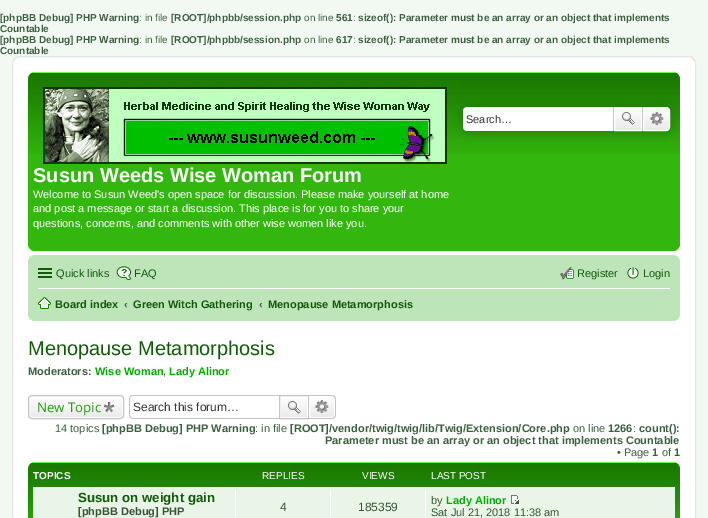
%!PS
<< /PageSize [708 518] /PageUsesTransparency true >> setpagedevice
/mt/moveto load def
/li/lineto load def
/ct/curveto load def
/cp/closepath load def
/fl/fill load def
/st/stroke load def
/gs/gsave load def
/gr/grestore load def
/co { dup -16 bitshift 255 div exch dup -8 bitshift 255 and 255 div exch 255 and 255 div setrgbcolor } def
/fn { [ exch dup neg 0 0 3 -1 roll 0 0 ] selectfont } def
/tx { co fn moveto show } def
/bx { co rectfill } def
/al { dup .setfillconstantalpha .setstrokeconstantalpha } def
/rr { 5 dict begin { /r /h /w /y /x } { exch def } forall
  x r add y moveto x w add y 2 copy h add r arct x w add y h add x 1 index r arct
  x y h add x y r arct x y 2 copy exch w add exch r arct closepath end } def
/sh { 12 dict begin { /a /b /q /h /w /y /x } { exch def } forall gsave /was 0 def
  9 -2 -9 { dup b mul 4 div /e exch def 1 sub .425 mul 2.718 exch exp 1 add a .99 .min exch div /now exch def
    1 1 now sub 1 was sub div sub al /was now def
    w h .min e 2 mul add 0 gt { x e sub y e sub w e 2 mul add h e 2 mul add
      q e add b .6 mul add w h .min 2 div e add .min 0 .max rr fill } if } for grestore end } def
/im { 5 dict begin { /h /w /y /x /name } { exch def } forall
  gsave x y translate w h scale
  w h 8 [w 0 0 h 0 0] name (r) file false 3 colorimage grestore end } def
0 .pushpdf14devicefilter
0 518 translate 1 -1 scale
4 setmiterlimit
0 0 708 518 16#F2F8F2 bx
16#FFFFFF co
12.5 56.5 683 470 7.5 rr gs fl gr
16#DEE7DF co
st
16#33B60E co
28 72 652 179 7 rr fl
(media/1.raw) 28 72 652 82 im
16#1A7800 co
463 107 207 24 4 5 1 sh
16#FFFFFF co
467 107 mt 613 107 li 613 131 li 467 131 li 465 131 463 129 463 127 ct 463 111 li 463 109 465 107 467 107 ct cp fl
gs 615 108 mt 641 108 li 641 130 li 615 130 li cp clip newpath
<< /ShadingType 2 /ColorSpace /DeviceRGB /Coords [628 107 628 131] /Extend [true true] /Function << /FunctionType 2 /Domain [0 1] /C0 [1 1 1] /C1 [.914 .914 .914] /N 1 >> >> shfill gr
614.5 107.5 27 23 rectstroke
642 107 1 24 16#C7C3BF bx
613 107 1 24 16#C7C3BF bx
(media/2.raw) 622 112 13 13 im
gs 643.5 107.5 mt 666 107.5 li 668 107.5 669.5 109 669.5 111 ct 669.5 127 li 669.5 129 668 130.5 666 130.5 ct 643.5 130.5 li cp clip newpath
<< /ShadingType 2 /ColorSpace /DeviceRGB /Coords [657 107 657 131] /Extend [true true] /Function << /FunctionType 2 /Domain [0 1] /C0 [1 1 1] /C1 [.914 .914 .914] /N 1 >> >> shfill gr
16#FFFFFF co
643.5 107.5 mt 666 107.5 li 668 107.5 669.5 109 669.5 111 ct 669.5 127 li 669.5 129 668 130.5 666 130.5 ct 643.5 130.5 li cp st
(media/3.raw) 650 112 14 13 im
(media/4.raw) 43 87 404 77 im
16#BEE5BA co
28 255 652 66 7 rr fl
38 268 14 2 16#125A0A bx
38 272 14 2 16#125A0A bx
38 276 14 2 16#125A0A bx
(media/5.raw) 116 266 16 14 im
(media/6.raw) 560 267 14 13 im
(media/7.raw) 627 267 12 12 im
38 288 632 1 16#FFFFFF bx
(media/8.raw) 38 297 13 12 im
gs
28 395 96 24 4 rr clip newpath
gs 28 396 mt 124 396 li 124 418 li 28 418 li cp clip newpath
<< /ShadingType 2 /ColorSpace /DeviceRGB /Coords [76 396 76 418] /Extend [true true] /Function << /FunctionType 2 /Domain [0 1] /C0 [1 1 1] /C1 [.914 .914 .914] /N 1 >> >> shfill gr
gr
29.5 396.5 93 21 2.5 rr st
16#C7C3BF co
28.5 395.5 95 23 3.5 rr st
(media/9.raw) 104 402 11 11 im
133 395 mt 279 395 li 279 419 li 133 419 li 131 419 129 417 129 415 ct 129 399 li 129 397 131 395 133 395 ct cp 133 396 mt 279 396 li 279 418 li 133 418 li 131 418 130 417 130 415 ct 130 399 li 130 397 131 396 133 396 ct cp eofill
gs 281 399 mt 307 399 li 307 417 li 281 417 li cp clip newpath
<< /ShadingType 2 /ColorSpace /DeviceRGB /Coords [294 396 294 418] /Extend [true true] /Function << /FunctionType 2 /Domain [0 1] /C0 [1 1 1] /C1 [.914 .914 .914] /N 1 >> >> shfill gr
279.5 395.5 29 23 rectstroke
(media/10.raw) 288 401 13 13 im
gs 309.5 396.5 mt 332 396.5 li 333.5 396.5 334.5 397.5 334.5 399 ct 334.5 415 li 334.5 416.5 333.5 417.5 332 417.5 ct 309.5 417.5 li cp clip newpath
<< /ShadingType 2 /ColorSpace /DeviceRGB /Coords [322 396 322 418] /Extend [true true] /Function << /FunctionType 2 /Domain [0 1] /C0 [1 1 1] /C1 [.914 .914 .914] /N 1 >> >> shfill gr
16#FFFFFF co
309.5 396.5 mt 332 396.5 li 333.5 396.5 334.5 397.5 334.5 399 ct 334.5 415 li 334.5 416.5 333.5 417.5 332 417.5 ct 309.5 417.5 li cp st
16#C7C3BF co
309 395 mt 332 395 li 334 395 336 397 336 399 ct 336 415 li 336 417 334 419 332 419 ct 309 419 li cp 309 396 mt 332 396 li 333.5 396 335 397.5 335 399 ct 335 415 li 335 416.5 333.5 418 332 418 ct 309 418 li cp eofill
(media/11.raw) 315 400 14 13 im
(media/12.raw) 28 462 652 56 im
33 488 642 30 16#E9F5E6 bx
33 487 642 1 16#FFFFFF bx
235 490 1 28 16#FFFFFF bx
330 490 1 28 16#FFFFFF bx
425 490 1 28 16#FFFFFF bx
(media/13.raw) 511 495 8 9 im
([phpBB Debug] PHP Warning) 0 21 /LiberationSans-Bold 10 16#3C5F3F tx
(: in file) 139 21 /LiberationSans-Regular 10 16#3C5F3F tx
([ROOT]/phpbb/session.php) 171 21 /LiberationSans-Bold 10 16#3C5F3F tx
(on line) 304 21 /LiberationSans-Regular 10 16#3C5F3F tx
(561) 336 21 /LiberationSans-Bold 10 16#3C5F3F tx
(:) 353 21 /LiberationSans-Regular 10 16#3C5F3F tx
(sizeof\(\): Parameter must be an array or an object that implements) 358 21 /LiberationSans-Bold 10 16#3C5F3F tx
(Countable) 0 32 /LiberationSans-Bold 10 16#3C5F3F tx
([phpBB Debug] PHP Warning) 0 43 /LiberationSans-Bold 10 16#3C5F3F tx
(: in file) 139 43 /LiberationSans-Regular 10 16#3C5F3F tx
([ROOT]/phpbb/session.php) 171 43 /LiberationSans-Bold 10 16#3C5F3F tx
(on line) 304 43 /LiberationSans-Regular 10 16#3C5F3F tx
(617) 336 43 /LiberationSans-Bold 10 16#3C5F3F tx
(:) 353 43 /LiberationSans-Regular 10 16#3C5F3F tx
(sizeof\(\): Parameter must be an array or an object that implements) 358 43 /LiberationSans-Bold 10 16#3C5F3F tx
(Countable) 0 54 /LiberationSans-Bold 10 16#3C5F3F tx
(Search…) 466 123 /LiberationSans-Regular 11 16#333333 tx
(Susun Weeds Wise Woman Forum) 33 182 /LiberationSans-Bold 20 16#FFFFFF tx
(Welcome to Susun Weed's open space for discussion. Please make yourself at home) 33 198 /LiberationSans-Regular 11 16#FFFFFF tx
(and post a message or start a discussion. This place is for you to share your) 33 212 /LiberationSans-Regular 11 16#FFFFFF tx
(questions, concerns, and comments with other wise women like you.) 33 227 /LiberationSans-Regular 11 16#FFFFFF tx
(Quick links) 56 277 /LiberationSans-Regular 11 16#125A0A tx
(FAQ) 134 277 /LiberationSans-Regular 11 16#125A0A tx
(Register) 577 277 /LiberationSans-Regular 11 16#125A0A tx
(Login) 643 277 /LiberationSans-Regular 11 16#125A0A tx
(Board index) 55 308 /LiberationSans-Bold 11 16#125A0A tx
(‹) 124 308 /LiberationSans-Bold 11 16#3C5F3F tx
(Green Witch Gathering) 133 308 /LiberationSans-Bold 11 16#125A0A tx
(‹) 259 308 /LiberationSans-Bold 11 16#3C5F3F tx
(Menopause Metamorphosis) 268 308 /LiberationSans-Bold 11 16#125A0A tx
(Menopause Metamorphosis) 28 355 /LiberationSans-Regular 20 16#125A0A tx
(Moderators:) 28 375 /LiberationSans-Bold 11 16#3C5F3F tx
(Wise Woman) 95 375 /LiberationSans-Bold 11 16#00AA00 tx
(,) 163 375 /LiberationSans-Regular 11 16#3C5F3F tx
(Lady Alinor) 169 375 /LiberationSans-Bold 11 16#00AA00 tx
(New Topic) 37 412 /OpenSans-Regular 13.25 16#20A00D tx
(Search this forum…) 133 411 /LiberationSans-Regular 12 16#333333 tx
(14 topics) 55 432 /LiberationSans-Regular 11 16#3C5F3F tx
([phpBB Debug] PHP Warning) 102 432 /LiberationSans-Bold 11 16#3C5F3F tx
(: in file) 255 432 /LiberationSans-Regular 11 16#3C5F3F tx
([ROOT]/vendor/twig/twig/lib/Twig/Extension/Core.php) 290 432 /LiberationSans-Bold 11 16#3C5F3F tx
(on line) 573 432 /LiberationSans-Regular 11 16#3C5F3F tx
(1266) 608 432 /LiberationSans-Bold 11 16#3C5F3F tx
(:) 633 432 /LiberationSans-Regular 11 16#3C5F3F tx
(count\(\):) 639 432 /LiberationSans-Bold 11 16#3C5F3F tx
(Parameter must be an array or an object that implements Countable) 325 444 /LiberationSans-Bold 11 16#3C5F3F tx
(• Page) 617 456 /LiberationSans-Regular 11 16#3C5F3F tx
(1) 652 456 /LiberationSans-Bold 11 16#3C5F3F tx
(of) 662 456 /LiberationSans-Regular 11 16#3C5F3F tx
(1) 674 456 /LiberationSans-Bold 11 16#3C5F3F tx
(TOPICS) 33 479 /LiberationSans-Bold 10 16#FFFFFF tx
(REPLIES) 262 479 /LiberationSans-Regular 10 16#FFFFFF tx
(VIEWS) 362 479 /LiberationSans-Regular 10 16#FFFFFF tx
(LAST POST) 431 479 /LiberationSans-Regular 10 16#FFFFFF tx
(Susun on weight gain) 78 502 /LiberationSans-Bold 13.25 16#125A0A tx
([phpBB Debug] PHP) 78 515 /LiberationSans-Bold 11 16#365437 tx
(4) 280 511 /LiberationSans-Regular 12 16#365437 tx
(185359) 358 511 /LiberationSans-Regular 12 16#365437 tx
(by) 431 504 /LiberationSans-Regular 11 16#365437 tx
(Lady Alinor) 446 504 /LiberationSans-Bold 11 16#00AA00 tx
(Sat Jul 21, 2018 11:38 am) 431 516 /LiberationSans-Regular 11 16#365437 tx
.poppdf14devicefilter showpage
